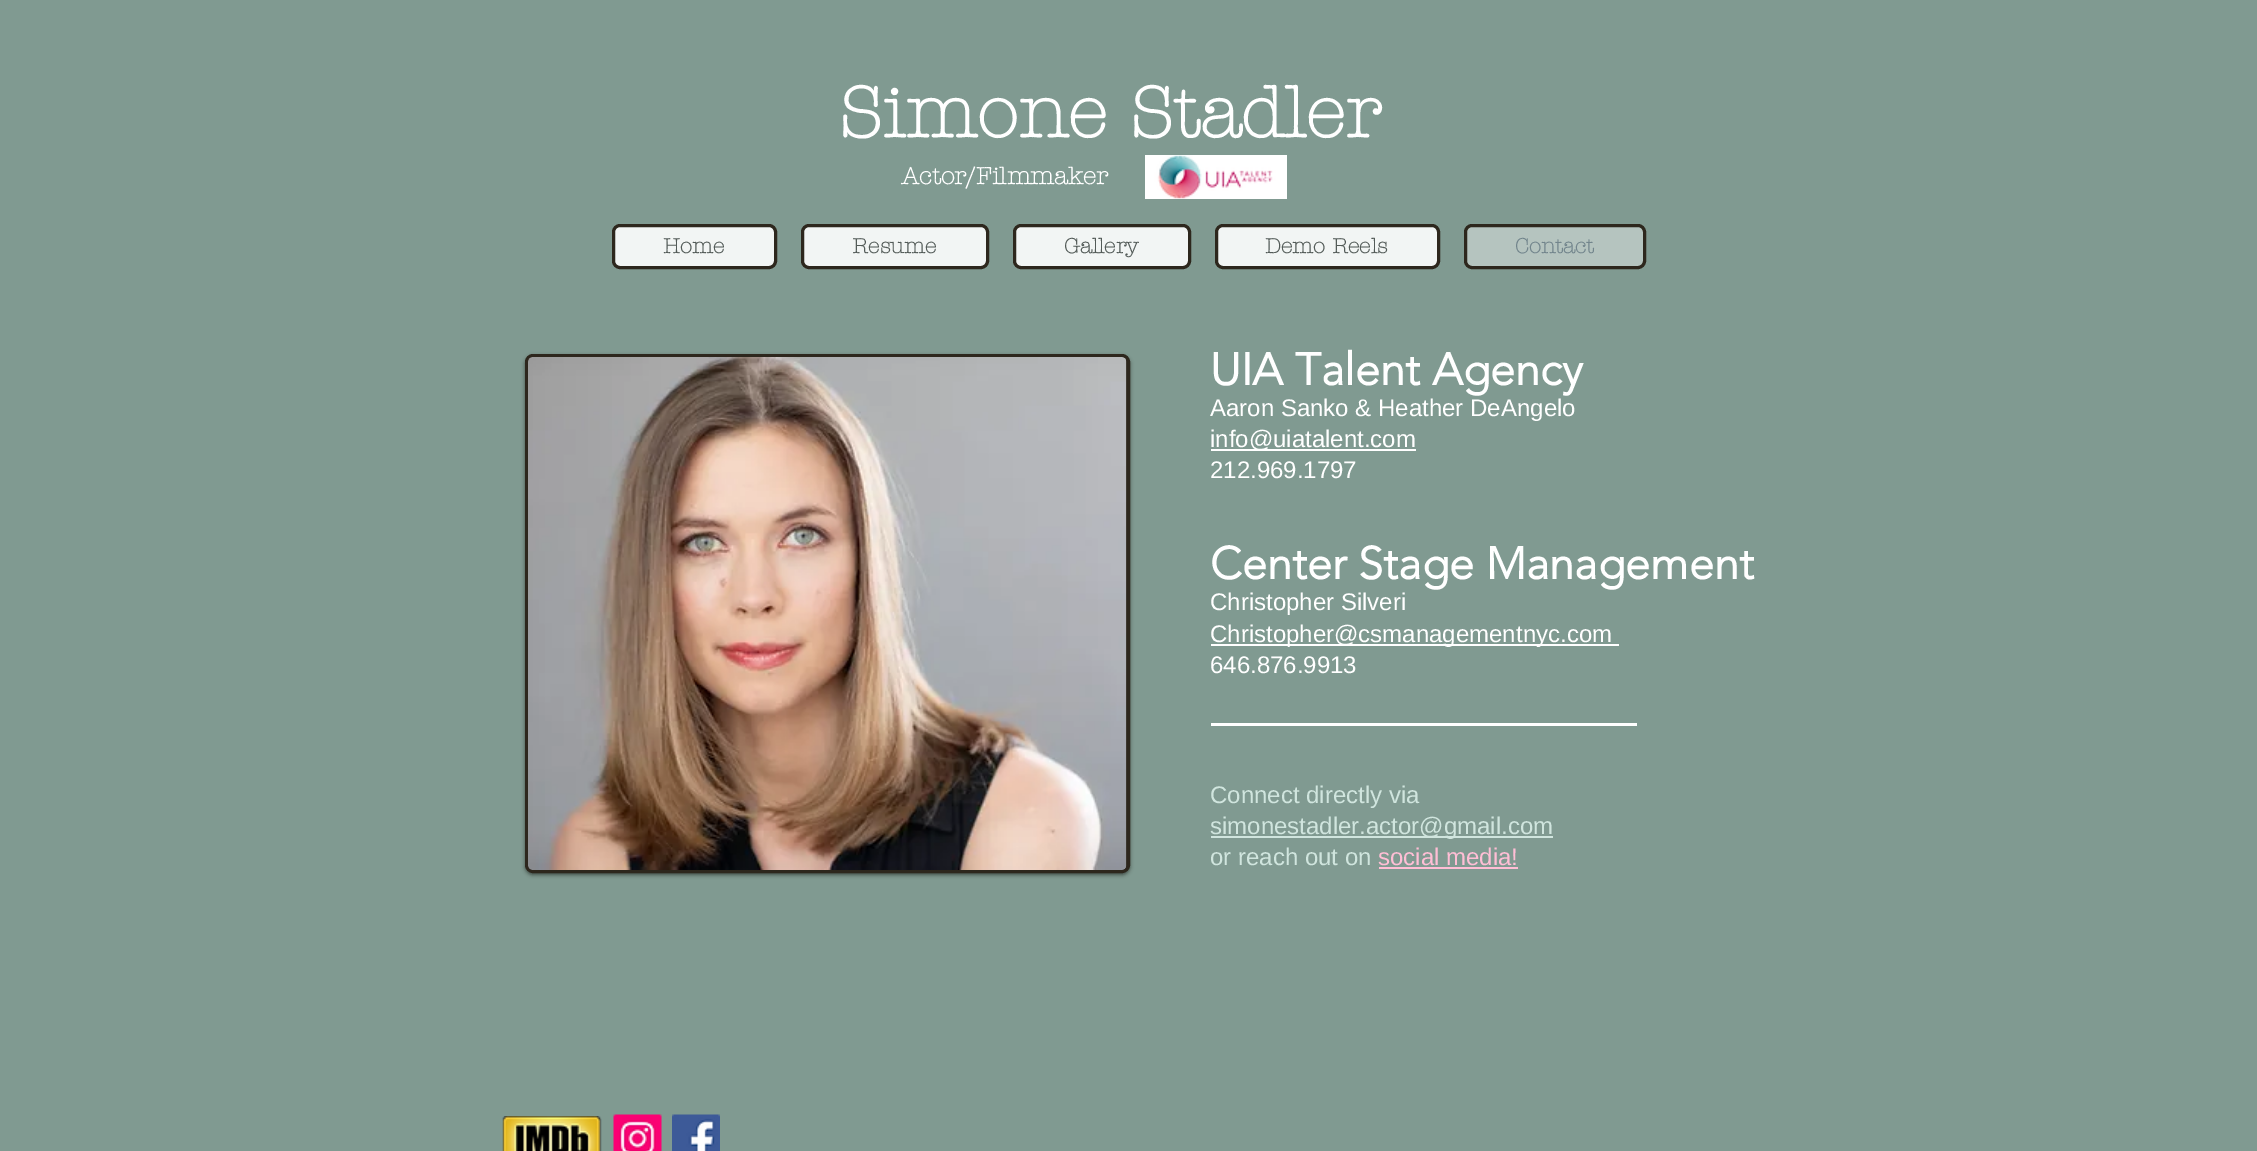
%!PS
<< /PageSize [2257 1151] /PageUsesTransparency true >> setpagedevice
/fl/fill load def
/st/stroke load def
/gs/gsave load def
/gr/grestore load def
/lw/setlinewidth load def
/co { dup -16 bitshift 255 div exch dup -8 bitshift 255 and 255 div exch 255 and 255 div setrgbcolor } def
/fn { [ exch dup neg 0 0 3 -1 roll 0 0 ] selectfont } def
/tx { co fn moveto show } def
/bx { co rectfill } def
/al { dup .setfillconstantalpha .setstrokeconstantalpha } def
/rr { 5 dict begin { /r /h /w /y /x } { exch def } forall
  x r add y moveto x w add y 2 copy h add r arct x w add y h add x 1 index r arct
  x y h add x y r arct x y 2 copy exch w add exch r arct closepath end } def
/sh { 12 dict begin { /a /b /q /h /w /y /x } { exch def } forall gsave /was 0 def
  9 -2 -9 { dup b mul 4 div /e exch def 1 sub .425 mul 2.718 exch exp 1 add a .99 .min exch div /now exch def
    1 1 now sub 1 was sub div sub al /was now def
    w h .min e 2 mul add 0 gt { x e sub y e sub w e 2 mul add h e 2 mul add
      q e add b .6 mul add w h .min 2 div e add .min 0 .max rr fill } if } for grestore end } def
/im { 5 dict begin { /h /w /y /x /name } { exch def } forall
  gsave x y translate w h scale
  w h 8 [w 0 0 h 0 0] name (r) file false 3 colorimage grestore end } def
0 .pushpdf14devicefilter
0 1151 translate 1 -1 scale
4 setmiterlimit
0 0 2257 1151 16#809A91 bx
(media/1.raw) 1145 155 142 44 im
16#F2F5F4 co
613.5 225.5 162 42 6.5 rr gs fl gr
16#2D271D co
3 lw
st
16#F2F5F4 co
802.5 225.5 185 42 6.5 rr gs fl gr
16#2D271D co
st
16#F2F5F4 co
1014.5 225.5 175 42 6.5 rr gs fl gr
16#2D271D co
st
16#F2F5F4 co
1216.5 225.5 222 42 6.5 rr gs fl gr
16#2D271D co
st
16#B5C4BF co
1465.5 225.5 179 42 6.5 rr gs fl gr
16#2D271D co
st
16#000000 co
525 356 605 519 8 2 .5 sh
16#2D271D co
526.5 355.5 602 516 6.5 rr gs fl gr
st
(media/2.raw) 528 357 599 513 im
1211 449 205 2 16#FFFFFF bx
1211 644 408 2 16#FFFFFF bx
1211 723 426 3 16#FFFFFF bx
1211 836 342 2 16#D0E5DE bx
1379 867 139 2 16#FFBED5 bx
(media/3.raw) 502 1116 100 35 im
(media/4.raw) 613 1114 49 37 im
(media/5.raw) 672 1114 48 37 im
(Simone Stadler) 839 137 /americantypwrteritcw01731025-Bold 72 16#FFFFFF tx
(Actor/Filmmaker) 901 184 /americantypwrteritcw01731025-Bold 24 16#FFFFFF tx
(Home) 663 253 /americantypwrteritcw01731025-Bold 21 16#535B58 tx
(Resume) 852 253 /americantypwrteritcw01731025-Bold 21 16#535B58 tx
(Gallery) 1064 253 /americantypwrteritcw01731025-Bold 21 16#535B58 tx
(Demo Reels) 1265 253 /americantypwrteritcw01731025-Bold 21 16#535B58 tx
(Contact) 1515 253 /americantypwrteritcw01731025-Bold 21 16#72858C tx
(UIA Talent Agency) 1210 385 /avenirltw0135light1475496-Bold 45 16#FFFFFF tx
(Aaron Sanko & Heather DeAngelo) 1210 416 /LiberationSans-Regular 24 16#FFFFFF tx
(info@uiatalent.com) 1210 447 /LiberationSans-Regular 24 16#FFFFFF tx
(212.969.1797) 1210 478 /LiberationSans-Regular 24 16#FFFFFF tx
(Center Stage Management) 1210 579 /avenirltw0135light1475496-Bold 45 16#FFFFFF tx
(Christopher Silveri) 1210 610 /LiberationSans-Regular 24 16#FFFFFF tx
(Christopher@csmanagementnyc.com) 1210 642 /LiberationSans-Regular 24 16#FFFFFF tx
(646.876.9913) 1210 673 /LiberationSans-Regular 24 16#FFFFFF tx
(Connect directly via) 1210 803 /LiberationSans-Regular 24 16#D0E5DE tx
(simonestadler.actor@gmail.com) 1210 834 /LiberationSans-Regular 24 16#D0E5DE tx
(or reach out on) 1210 865 /LiberationSans-Regular 24 16#D0E5DE tx
(social media!) 1378 865 /LiberationSans-Regular 24 16#FFBED5 tx
.poppdf14devicefilter showpage
